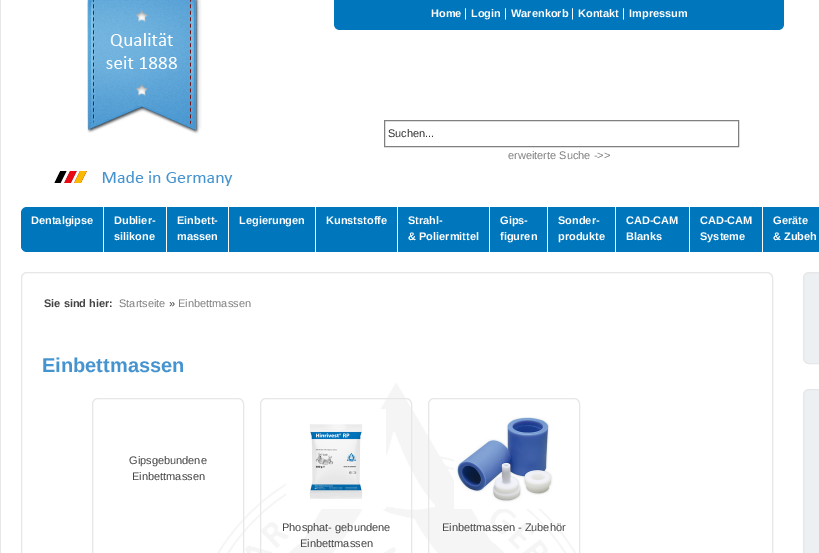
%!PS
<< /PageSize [819 553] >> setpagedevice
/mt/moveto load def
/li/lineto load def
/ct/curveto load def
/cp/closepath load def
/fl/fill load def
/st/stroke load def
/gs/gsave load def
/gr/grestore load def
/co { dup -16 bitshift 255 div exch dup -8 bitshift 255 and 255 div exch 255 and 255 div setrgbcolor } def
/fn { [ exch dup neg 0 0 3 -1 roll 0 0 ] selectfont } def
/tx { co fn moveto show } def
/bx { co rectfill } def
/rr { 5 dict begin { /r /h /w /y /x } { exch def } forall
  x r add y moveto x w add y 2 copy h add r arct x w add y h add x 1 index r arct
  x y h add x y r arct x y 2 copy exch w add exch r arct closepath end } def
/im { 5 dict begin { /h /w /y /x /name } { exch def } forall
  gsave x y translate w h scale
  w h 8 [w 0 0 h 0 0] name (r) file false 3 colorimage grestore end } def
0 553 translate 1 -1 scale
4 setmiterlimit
0 0 819 553 16#FFFFFF bx
0 0 1 553 16#E7E7E7 bx
(media/1.raw) 87 0 115 134 im
(media/2.raw) 54 171 179 15 im
16#0076BC co
334 0 mt 784 0 li 784 24 li 784 27.5 781.5 30 778 30 ct 340 30 li 336.5 30 334 27.5 334 24 ct cp fl
16#808080 co
384.5 120.5 354 26 rectstroke
16#0076BC co
21 207 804 45 6 rr fl
103 207 1 45 16#FFFFFF bx
166 207 1 45 16#FFFFFF bx
228 207 1 45 16#FFFFFF bx
315 207 1 45 16#FFFFFF bx
397 207 1 45 16#FFFFFF bx
489 207 1 45 16#FFFFFF bx
547 207 1 45 16#FFFFFF bx
615 207 1 45 16#FFFFFF bx
689 207 1 45 16#FFFFFF bx
762 207 1 45 16#FFFFFF bx
(media/3.raw) 217 383 359 170 im
16#E7E7E7 co
21.5 272.5 751 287 5.5 rr st
92.5 398.5 151 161 5.5 rr st
260.5 398.5 151 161 5.5 rr st
(media/4.raw) 286 409 100 100 im
428.5 398.5 151 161 5.5 rr st
(media/5.raw) 454 417 99 92 im
16#ECF0F3 co
803.5 272.5 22 91 5.5 rr gs fl gr
16#E7E7E7 co
st
16#ECF0F3 co
803.5 389.5 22 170 5.5 rr gs fl gr
16#E7E7E7 co
st
(Home) 431 17 /LiberationSans-Bold 11 16#FFFFFF tx
(|) 464 17 /LiberationSans-Regular 12 16#FFFFFF tx
(Login) 471 17 /LiberationSans-Bold 11 16#FFFFFF tx
(|) 504 17 /LiberationSans-Regular 12 16#FFFFFF tx
(Warenkorb) 511 17 /LiberationSans-Bold 11 16#FFFFFF tx
(|) 571 17 /LiberationSans-Regular 12 16#FFFFFF tx
(Kontakt) 578 17 /LiberationSans-Bold 11 16#FFFFFF tx
(|) 622 17 /LiberationSans-Regular 12 16#FFFFFF tx
(Impressum) 629 17 /LiberationSans-Bold 11 16#FFFFFF tx
(Suchen...) 388 137 /LiberationSans-Regular 11 16#333333 tx
(erweiterte Suche ->>) 508 159 /LiberationSans-Regular 11 16#808080 tx
(Dentalgipse) 31 224 /LiberationSans-Bold 11 16#FFFFFF tx
(Dublier-) 114 224 /LiberationSans-Bold 11 16#FFFFFF tx
(silikone) 114 240 /LiberationSans-Bold 11 16#FFFFFF tx
(Einbett-) 177 224 /LiberationSans-Bold 11 16#FFFFFF tx
(massen) 177 240 /LiberationSans-Bold 11 16#FFFFFF tx
(Legierungen) 239 224 /LiberationSans-Bold 11 16#FFFFFF tx
(Kunststoffe) 326 224 /LiberationSans-Bold 11 16#FFFFFF tx
(Strahl-) 408 224 /LiberationSans-Bold 11 16#FFFFFF tx
(& Poliermittel) 408 240 /LiberationSans-Bold 11 16#FFFFFF tx
(Gips-) 500 224 /LiberationSans-Bold 11 16#FFFFFF tx
(figuren) 500 240 /LiberationSans-Bold 11 16#FFFFFF tx
(Sonder-) 558 224 /LiberationSans-Bold 11 16#FFFFFF tx
(produkte) 558 240 /LiberationSans-Bold 11 16#FFFFFF tx
(CAD-CAM) 626 224 /LiberationSans-Bold 11 16#FFFFFF tx
(Blanks) 626 240 /LiberationSans-Bold 11 16#FFFFFF tx
(CAD-CAM) 700 224 /LiberationSans-Bold 11 16#FFFFFF tx
(Systeme) 700 240 /LiberationSans-Bold 11 16#FFFFFF tx
(Geräte) 773 224 /LiberationSans-Bold 11 16#FFFFFF tx
(& Zubeh) 773 240 /LiberationSans-Bold 11 16#FFFFFF tx
(Sie sind hier:) 44 307 /LiberationSans-Bold 11 16#444444 tx
(Startseite) 119 307 /LiberationSans-Regular 11 16#808080 tx
(») 169 307 /LiberationSans-Regular 11 16#444444 tx
(Einbettmassen) 178 307 /LiberationSans-Regular 11 16#808080 tx
(Einbettmassen) 42 372 /LiberationSans-Bold 20 16#4694CF tx
(Gipsgebundene) 129 464 /LiberationSans-Regular 11 16#444444 tx
(Einbettmassen) 132 480 /LiberationSans-Regular 11 16#444444 tx
(Phosphat- gebundene) 282 531 /LiberationSans-Regular 11 16#444444 tx
(Einbettmassen) 300 547 /LiberationSans-Regular 11 16#444444 tx
(Einbettmassen - Zubehör) 442 531 /LiberationSans-Regular 11 16#444444 tx
showpage
